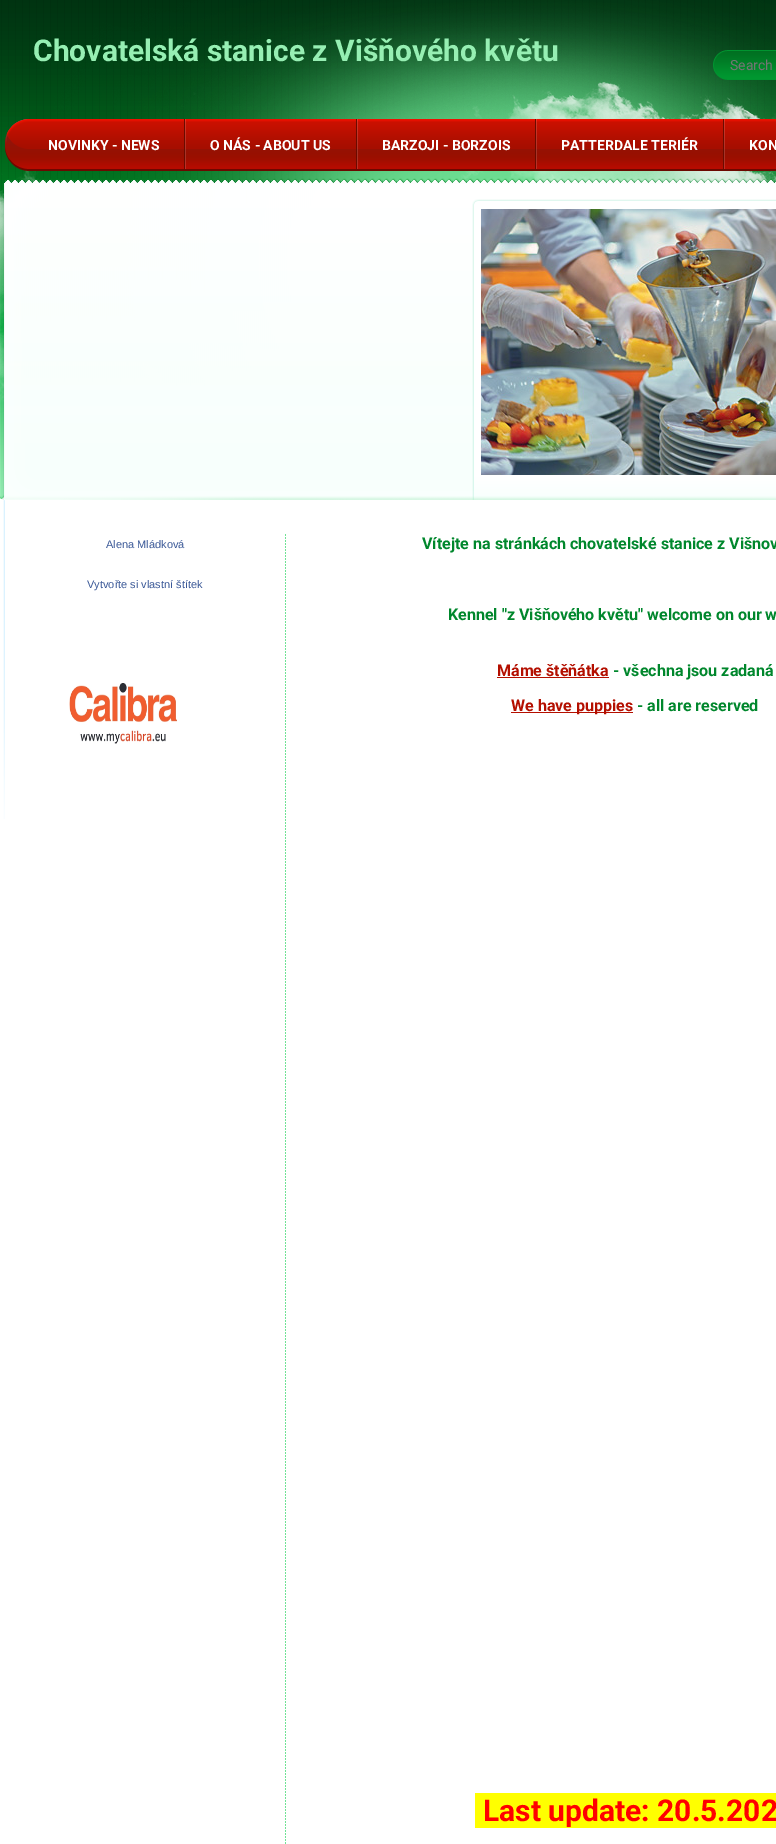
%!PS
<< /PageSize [776 1844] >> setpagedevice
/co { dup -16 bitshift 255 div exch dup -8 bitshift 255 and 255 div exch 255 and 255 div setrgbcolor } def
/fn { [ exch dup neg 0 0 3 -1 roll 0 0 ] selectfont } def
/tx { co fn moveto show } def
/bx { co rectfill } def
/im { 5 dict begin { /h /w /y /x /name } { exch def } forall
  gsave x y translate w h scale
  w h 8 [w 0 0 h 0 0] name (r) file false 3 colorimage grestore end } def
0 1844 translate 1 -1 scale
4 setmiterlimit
0 0 776 1844 16#FFFFFF bx
(media/1.raw) 0 0 776 499 im
(media/2.raw) 0 0 776 500 im
(media/3.raw) 713 50 63 30 im
(media/4.raw) 5 119 771 52 im
(media/5.raw) 184 119 2 50 im
(media/5.raw) 356 119 2 50 im
(media/5.raw) 535 119 2 50 im
(media/5.raw) 723 119 2 50 im
(media/6.raw) 3 500 2 319 im
(media/7.raw) 4 180 772 320 im
(media/8.raw) 481 209 295 266 im
(media/9.raw) 285 534 1 1310 im
(media/10.raw) 69 683 108 61 im
497 677 112 1 16#B40F00 bx
511 712 122 1 16#B40F00 bx
475 1793 301 35 16#FFFF00 bx
(Chovatelská stanice z Višňového květu) 33 61 /Roboto-Bold 30 16#96EFB3 tx
(Search) 730 70 /Roboto-Regular 14 16#757575 tx
(NOVINKY - NEWS) 48 150 /Roboto-Bold 14 16#FFFFFF tx
(O NÁS - ABOUT US) 210 150 /Roboto-Bold 14 16#FFFFFF tx
(BARZOJI - BORZOIS) 382 150 /Roboto-Bold 14 16#FFFFFF tx
(PATTERDALE TERIÉR) 561 150 /Roboto-Bold 14 16#FFFFFF tx
(KON) 749 150 /Roboto-Bold 14 16#FFFFFF tx
(Alena Mládková) 106 548 /LiberationSans-Regular 11 16#3B5998 tx
(Vytvořte si vlastní štítek) 87 588 /LiberationSans-Regular 11 16#3B5998 tx
(Vítejte na stránkách chovatelské stanice z Višnov) 422 549 /Roboto-Bold 16 16#00872C tx
(Kennel "z Višňového květu" welcome on our w) 448 620 /Roboto-Bold 16 16#00872C tx
(Máme štěňátka) 497 676 /Roboto-Bold 16 16#B40F00 tx
(- všechna jsou zadaná) 613 676 /Roboto-Bold 16 16#00872C tx
(We have puppies) 511 711 /Roboto-Bold 16 16#B40F00 tx
(- all are reserved) 637 711 /Roboto-Bold 16 16#00872C tx
(Last update: 20.5.202) 483 1821 /Roboto-Bold 30 16#FF0000 tx
showpage
